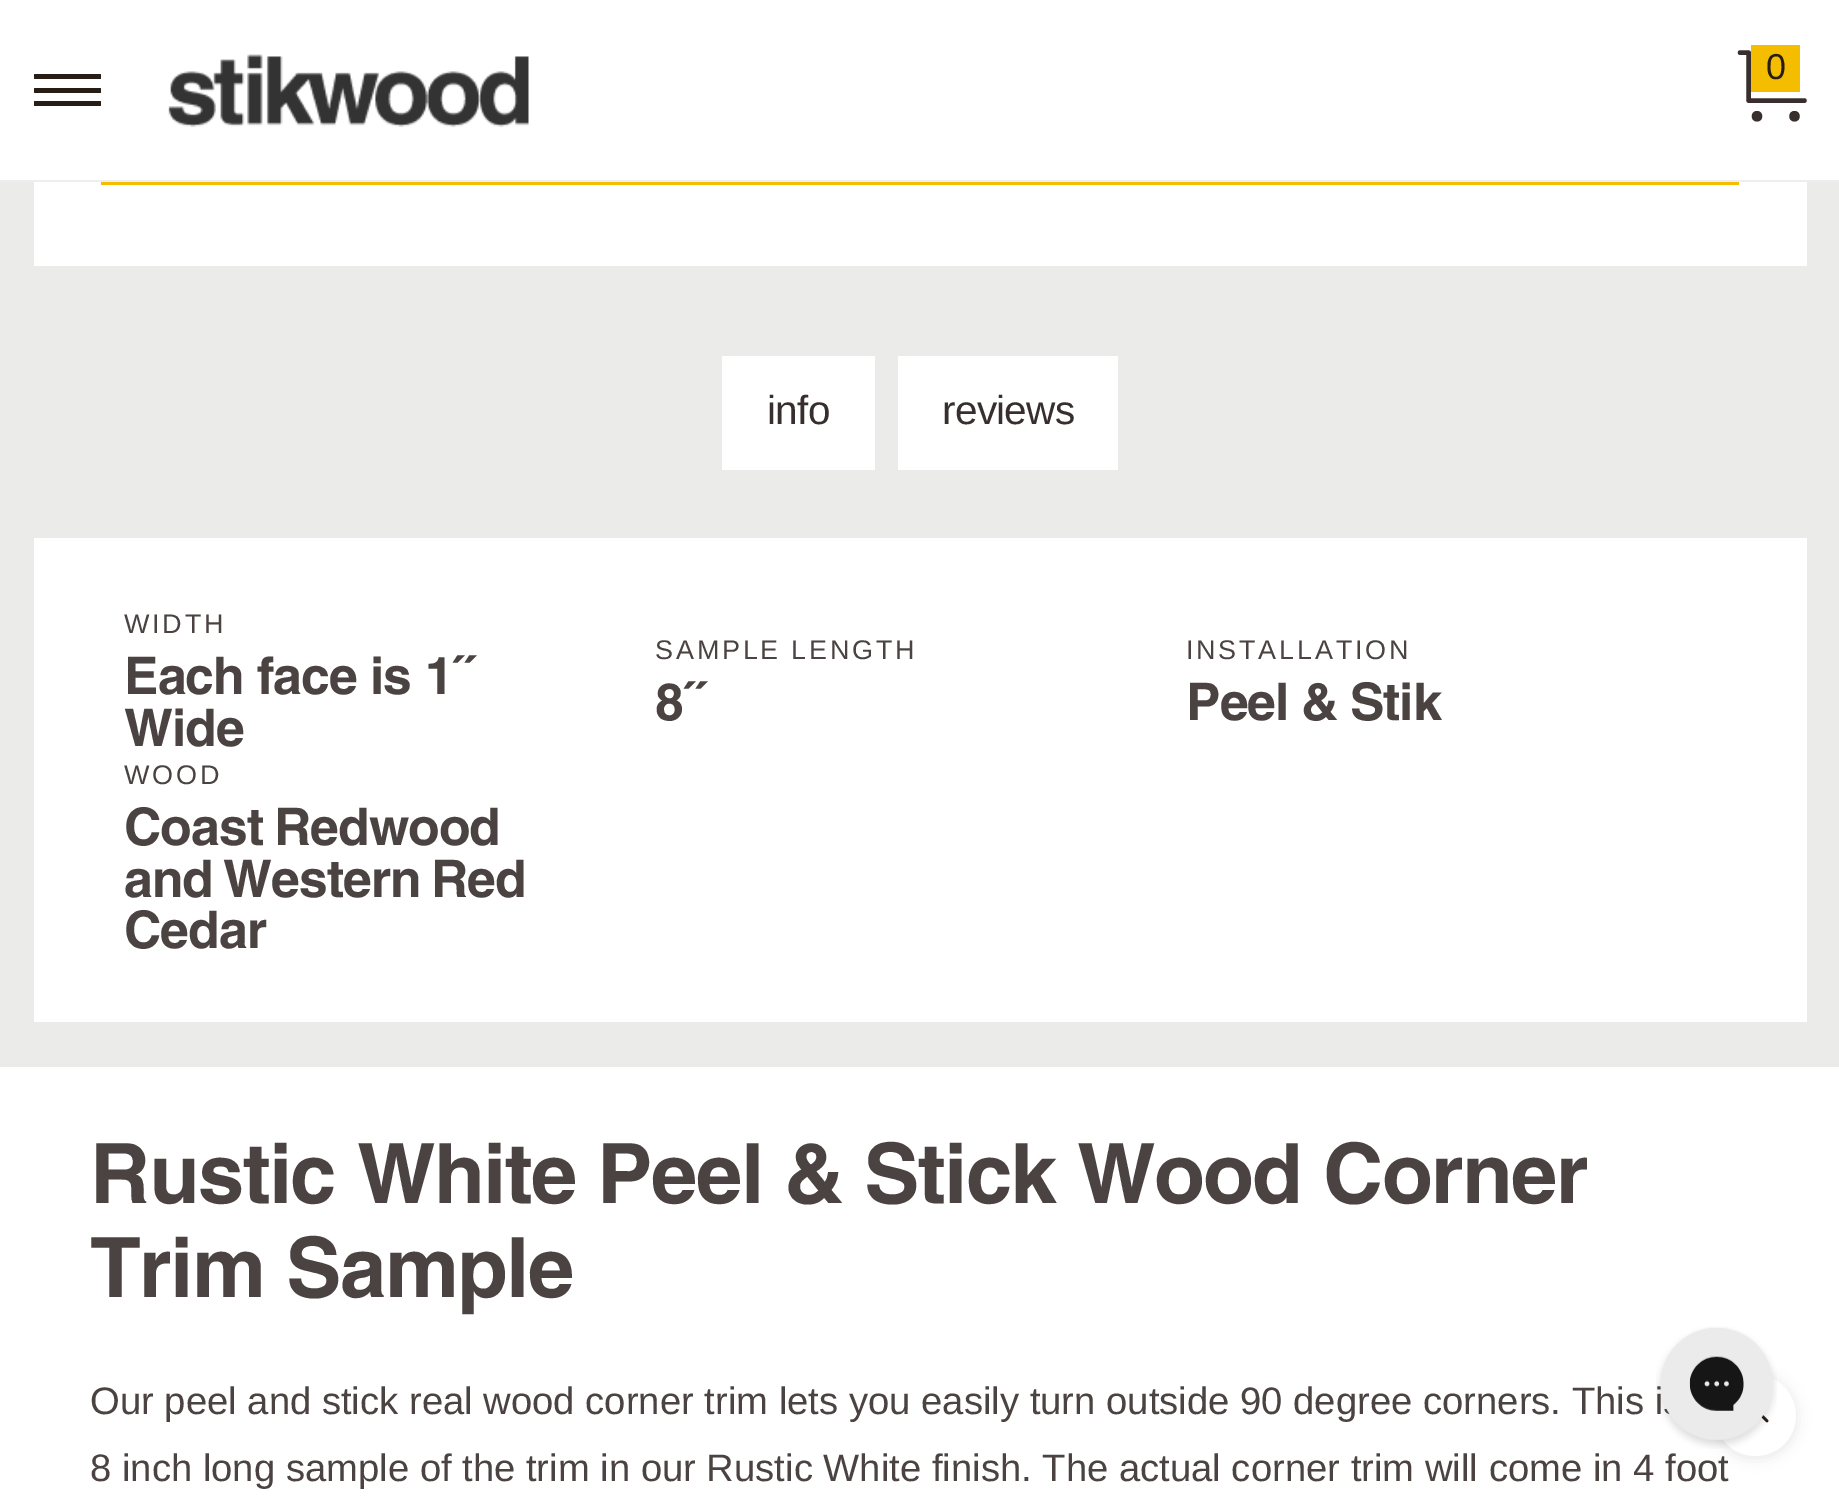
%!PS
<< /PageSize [1839 1500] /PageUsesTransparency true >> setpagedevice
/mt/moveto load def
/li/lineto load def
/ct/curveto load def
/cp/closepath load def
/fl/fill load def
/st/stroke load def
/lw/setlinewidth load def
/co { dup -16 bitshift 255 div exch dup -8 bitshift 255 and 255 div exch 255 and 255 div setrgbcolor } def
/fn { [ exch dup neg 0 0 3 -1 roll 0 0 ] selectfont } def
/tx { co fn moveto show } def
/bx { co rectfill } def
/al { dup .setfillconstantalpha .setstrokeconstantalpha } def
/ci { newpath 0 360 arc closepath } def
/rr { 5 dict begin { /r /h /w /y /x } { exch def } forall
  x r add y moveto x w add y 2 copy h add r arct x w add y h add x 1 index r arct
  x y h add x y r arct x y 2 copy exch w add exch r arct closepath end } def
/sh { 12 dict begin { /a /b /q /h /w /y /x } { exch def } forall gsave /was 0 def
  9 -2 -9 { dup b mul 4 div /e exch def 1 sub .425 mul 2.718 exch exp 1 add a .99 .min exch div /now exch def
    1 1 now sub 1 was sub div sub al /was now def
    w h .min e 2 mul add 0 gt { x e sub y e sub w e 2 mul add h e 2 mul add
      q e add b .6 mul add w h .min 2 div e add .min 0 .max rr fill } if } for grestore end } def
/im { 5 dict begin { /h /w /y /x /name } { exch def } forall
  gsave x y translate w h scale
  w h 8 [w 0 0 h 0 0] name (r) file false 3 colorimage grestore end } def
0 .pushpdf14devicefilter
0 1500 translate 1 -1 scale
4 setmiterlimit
0 0 1839 1500 16#EBEBEA bx
0 0 1839 180 16#FFFFFF bx
0 180 1839 2 16#EEEEEE bx
16#281D15 co
34 74 67 5 1 rr fl
34 88 67 5 1 rr fl
34 101 67 5 1 rr fl
(media/1.raw) 168 54 361 74 im
16#372E2D co
4.5 lw
1 setlinecap
1 setlinejoin
1740 52.5 mt 1748.5 52.5 li 1748.5 100.5 li 1804.5 100.5 li st
1757 121.5 mt 1764 121.5 1764 111 1757 111 ct 1750 111 1750 121.5 1757 121.5 ct cp 1794.5 121.5 mt 1801.5 121.5 1801.5 111 1794.5 111 ct 1787.5 111 1787.5 121.5 1794.5 121.5 ct cp fl
1751 45 49 47 16#F5BD00 bx
34 182 1773 84 16#FFFFFF bx
101 182 1638 3 16#F5BD00 bx
722 356 153 114 16#FFFFFF bx
898 356 220 114 16#FFFFFF bx
34 538 1773 484 16#FFFFFF bx
0 1067 1839 433 16#FFFFFF bx
16#000000 co
1715 1377 81 81 40.5 7 .1 sh
(0) 1766 79 /LiberationSans-Regular 36 16#281D15 tx
/LiberationSans-Regular 40.5 fn
16#372E2D co
767 424 mt -.75 0 (info) ashow
942 424 mt -.75 0 (reviews) ashow
/LiberationSans-Regular 27 fn
16#4B4342 co
124 633 mt 2.75 0 (WIDTH) ashow
/Helvetica-Bold 51.75 fn
124 694 mt -1 0 (Each face is 1˝) ashow
124 746 mt -1 0 (Wide) ashow
/LiberationSans-Regular 27 fn
655 659 mt 2.75 0 (SAMPLE LENGTH) ashow
/Helvetica-Bold 51.75 fn
655 720 mt -1 0 (8˝) ashow
/LiberationSans-Regular 27 fn
1186 659 mt 2.75 0 (INSTALLATION) ashow
/Helvetica-Bold 51.75 fn
1186 720 mt -1 0 32 -1 0 (Peel & Stik) awidthshow
/LiberationSans-Regular 27 fn
124 784 mt 2.75 0 (WOOD) ashow
/Helvetica-Bold 51.75 fn
124 845 mt -2 0 32 -1 0 (Coast Redwood) awidthshow
124 897 mt -3 0 32 -1 0 (and Western Red) awidthshow
124 948 mt -1 0 (Cedar) ashow
/Helvetica-Bold 83.25 fn
90 1203 mt -1.55 0 (Rustic White Peel & Stick Wood Corner) ashow
90 1297 mt -1.55 0 (Trim Sample) ashow
(Our peel and stick real wood corner trim lets you easily turn outside 90 degree corners. This i) 90 1414 /LiberationSans-Regular 38.25 16#4B4342 tx
(8 inch long sample of the trim in our Rustic White finish. The actual corner trim will come in 4 foot) 90 1481 /LiberationSans-Regular 38.25 16#4B4342 tx
16#FFFFFF co
1755.5 1415.5 40.5 ci fl
(media/3.raw) 1761 1414 8 9 im
(media/2.raw) 1656 1326 121 123 im
.poppdf14devicefilter showpage
